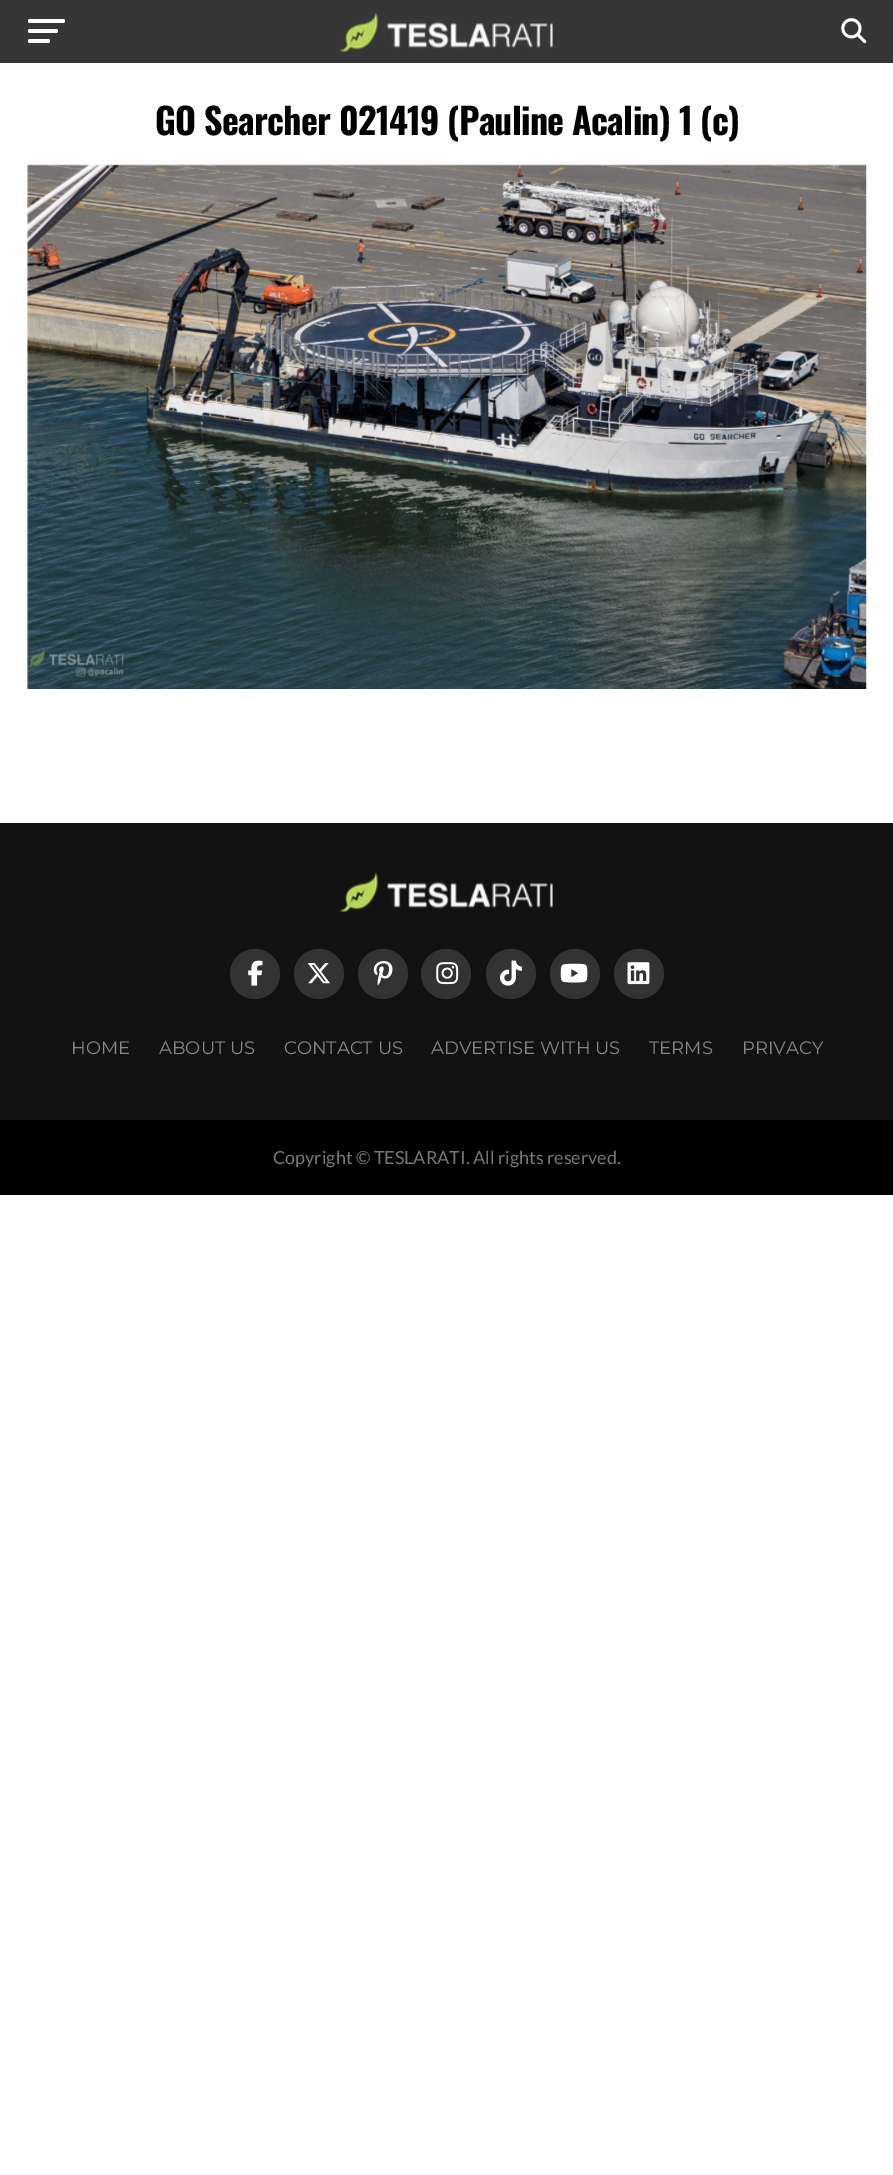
%!PS
<< /PageSize [893 2175] >> setpagedevice
/mt/moveto load def
/fl/fill load def
/co { dup -16 bitshift 255 div exch dup -8 bitshift 255 and 255 div exch 255 and 255 div setrgbcolor } def
/fn { [ exch dup neg 0 0 3 -1 roll 0 0 ] selectfont } def
/tx { co fn moveto show } def
/bx { co rectfill } def
/ci { newpath 0 360 arc closepath } def
/rr { 5 dict begin { /r /h /w /y /x } { exch def } forall
  x r add y moveto x w add y 2 copy h add r arct x w add y h add x 1 index r arct
  x y h add x y r arct x y 2 copy exch w add exch r arct closepath end } def
/im { 5 dict begin { /h /w /y /x /name } { exch def } forall
  gsave x y translate w h scale
  w h 8 [w 0 0 h 0 0] name (r) file false 3 colorimage grestore end } def
0 2175 translate 1 -1 scale
4 setmiterlimit
0 0 893 2175 16#FFFFFF bx
0 0 893 63 16#363636 bx
16#FFFFFF co
28 19 37 4 2 rr fl
28 29 30 4 2 rr fl
28 39 22 4 2 rr fl
(media/1.raw) 340 12 213 40 im
(media/2.raw) 841 18 26 26 im
(media/3.raw) 27 164 840 525 im
0 823 893 297 16#111111 bx
(media/4.raw) 340 872 213 40 im
16#333333 co
255 974 25 ci fl
(media/5.raw) 248 960 15 26 im
319 974 25 ci fl
(media/6.raw) 307 963 23 21 im
383 974 25 ci fl
(media/7.raw) 373 961 20 25 im
446 974 25 ci fl
(media/8.raw) 436 962 23 23 im
511 974 25 ci fl
(media/9.raw) 500 960 22 26 im
575 974 25 ci fl
(media/10.raw) 560 963 28 20 im
639 974 25 ci fl
(media/11.raw) 627 962 23 23 im
0 1120 893 75 16#000000 bx
/Oswald-Bold 36 fn
155 135 mt -.7 0 (GO Searcher 021419 \(Pauline Acalin\) 1 \(c\)) ashow
(HOME) 71 1054 /Montserrat-Regular 18 16#888888 tx
(ABOUT US) 159 1054 /Montserrat-Regular 18 16#888888 tx
(CONTACT US) 284 1054 /Montserrat-Regular 18 16#888888 tx
(ADVERTISE WITH US) 431 1054 /Montserrat-Regular 18 16#888888 tx
(TERMS) 649 1054 /Montserrat-Regular 18 16#888888 tx
(PRIVACY) 742 1054 /Montserrat-Regular 18 16#888888 tx
(Copyright © TESLARATI. All rights reserved.) 273 1164 /Lato-Regular 18 16#777777 tx
showpage
